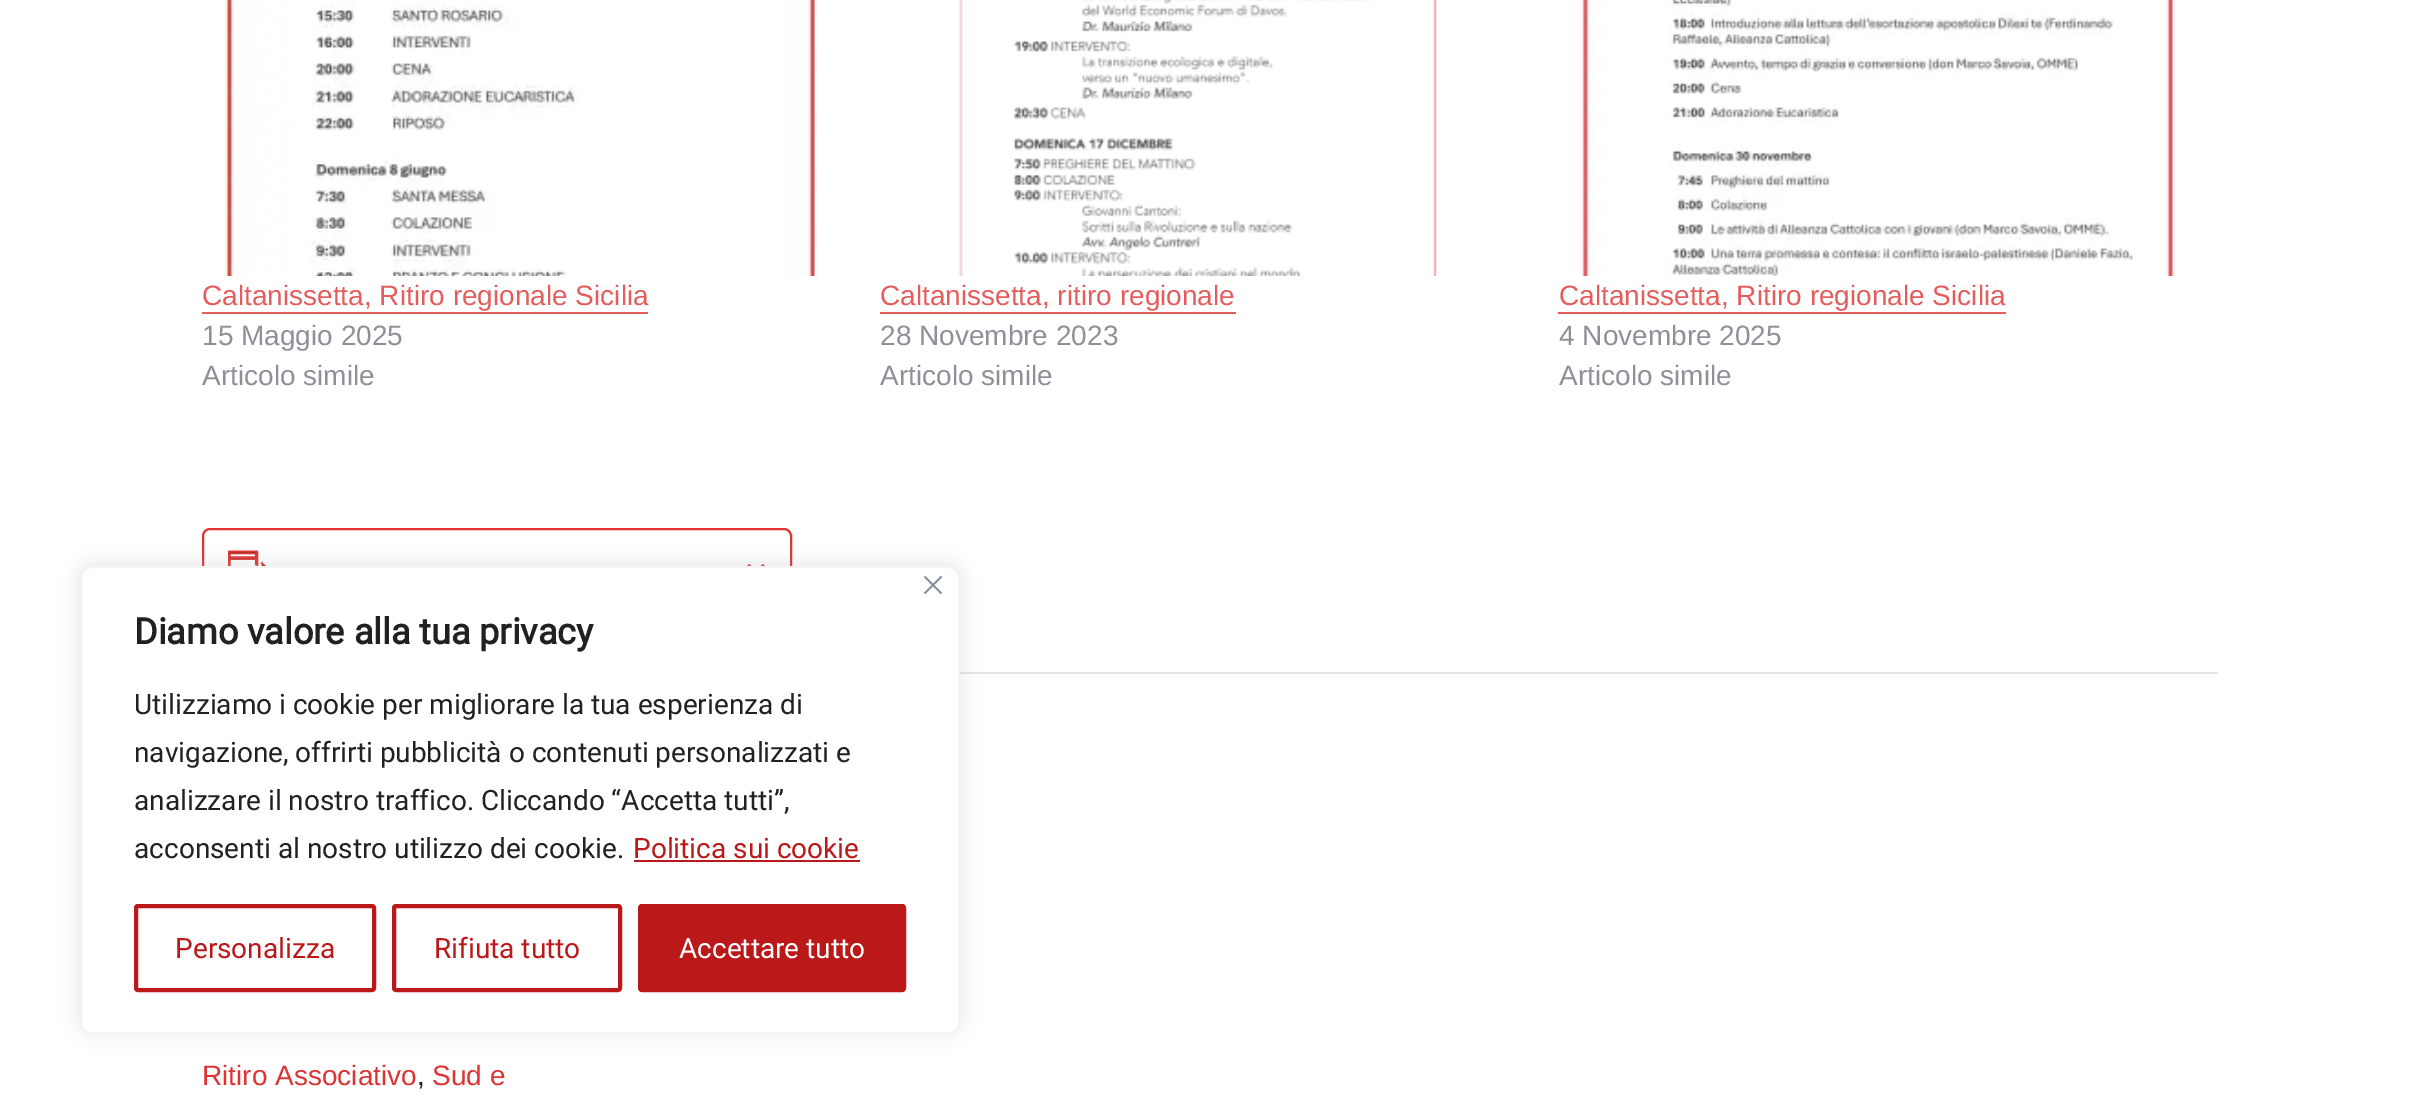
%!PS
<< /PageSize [2420 1113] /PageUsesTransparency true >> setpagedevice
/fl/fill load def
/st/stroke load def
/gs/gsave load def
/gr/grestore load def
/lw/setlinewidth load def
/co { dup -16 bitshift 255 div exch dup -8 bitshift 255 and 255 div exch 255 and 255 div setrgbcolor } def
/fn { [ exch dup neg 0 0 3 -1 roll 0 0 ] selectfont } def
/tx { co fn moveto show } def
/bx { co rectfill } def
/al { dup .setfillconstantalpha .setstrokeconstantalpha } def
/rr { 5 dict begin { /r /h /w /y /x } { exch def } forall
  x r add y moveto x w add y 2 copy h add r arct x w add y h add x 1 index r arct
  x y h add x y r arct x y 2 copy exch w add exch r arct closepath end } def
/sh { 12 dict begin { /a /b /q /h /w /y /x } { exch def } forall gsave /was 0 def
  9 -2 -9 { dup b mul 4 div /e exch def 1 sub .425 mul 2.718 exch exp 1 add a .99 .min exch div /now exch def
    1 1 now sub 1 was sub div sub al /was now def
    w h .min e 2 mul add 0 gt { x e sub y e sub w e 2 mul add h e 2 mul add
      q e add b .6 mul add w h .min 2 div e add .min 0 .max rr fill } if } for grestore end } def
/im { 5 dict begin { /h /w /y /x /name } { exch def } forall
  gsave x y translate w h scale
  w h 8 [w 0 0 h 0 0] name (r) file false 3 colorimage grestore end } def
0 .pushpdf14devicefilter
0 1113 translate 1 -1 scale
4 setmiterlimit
0 0 2420 1113 16#FFFFFF bx
(media/1.raw) 224 0 594 276 im
202 312 446 2 16#E45C5C bx
(media/2.raw) 958 0 479 276 im
880 312 356 2 16#E45C5C bx
(media/3.raw) 1581 0 595 276 im
1558 312 448 2 16#E45C5C bx
16#DD3333 co
2 lw
203 529 588 78 7 rr st
(media/4.raw) 228 550 38 16 im
(media/5.raw) 747 564 18 2 im
960 672 1258 2 16#E4E4E4 bx
16#ACABAB co
80 564 880 468 12 10 .3 sh
16#FFFFFF co
81 567 878 466 11 rr gs fl gr
16#F4F4F4 co
st
(media/6.raw) 924 576 18 18 im
634 860 226 2 16#BB1919 bx
4 lw
136 906 238 84 2 rr st
394 906 226 84 2 rr st
640 906 264 84 2 rr gs fl gr
st
(Caltanissetta, Ritiro regionale Sicilia) 202 305 /LiberationSans-Regular 28 16#E45C5C tx
(15 Maggio 2025) 202 345 /LiberationSans-Regular 28 16#8E9097 tx
(Articolo simile) 202 385 /LiberationSans-Regular 28 16#8E9097 tx
(Caltanissetta, ritiro regionale) 880 305 /LiberationSans-Regular 28 16#E45C5C tx
(28 Novembre 2023) 880 345 /LiberationSans-Regular 28 16#8E9097 tx
(Articolo simile) 880 385 /LiberationSans-Regular 28 16#8E9097 tx
(Caltanissetta, Ritiro regionale Sicilia) 1559 305 /LiberationSans-Regular 28 16#E45C5C tx
(4 Novembre 2025) 1559 345 /LiberationSans-Regular 28 16#8E9097 tx
(Articolo simile) 1559 385 /LiberationSans-Regular 28 16#8E9097 tx
(Ritiro Associativo) 202 1085 /LiberationSans-Regular 28 16#DD3333 tx
(,) 417 1085 /LiberationSans-Regular 28 16#141827 tx
(Sud e) 432 1085 /LiberationSans-Regular 28 16#DD3333 tx
(Diamo valore alla tua privacy) 134 644 /Roboto-Bold 36 16#212121 tx
(Utilizziamo i cookie per migliorare la tua esperienza di) 134 714 /Roboto-Regular 28 16#212121 tx
(navigazione, offrirti pubblicità o contenuti personalizzati e) 134 762 /Roboto-Regular 28 16#212121 tx
(analizzare il nostro traffico. Cliccando “Accetta tutti”,) 134 810 /Roboto-Regular 28 16#212121 tx
(acconsenti al nostro utilizzo dei cookie.) 134 858 /Roboto-Regular 28 16#212121 tx
(Politica sui cookie) 633 858 /Roboto-Regular 28 16#BB1919 tx
(Personalizza) 175 958 /Roboto-Regular 28 16#BB1919 tx
(Rifiuta tutto) 434 958 /Roboto-Regular 28 16#BB1919 tx
(Accettare tutto) 679 958 /Roboto-Regular 28 16#FFFFFF tx
.poppdf14devicefilter showpage
